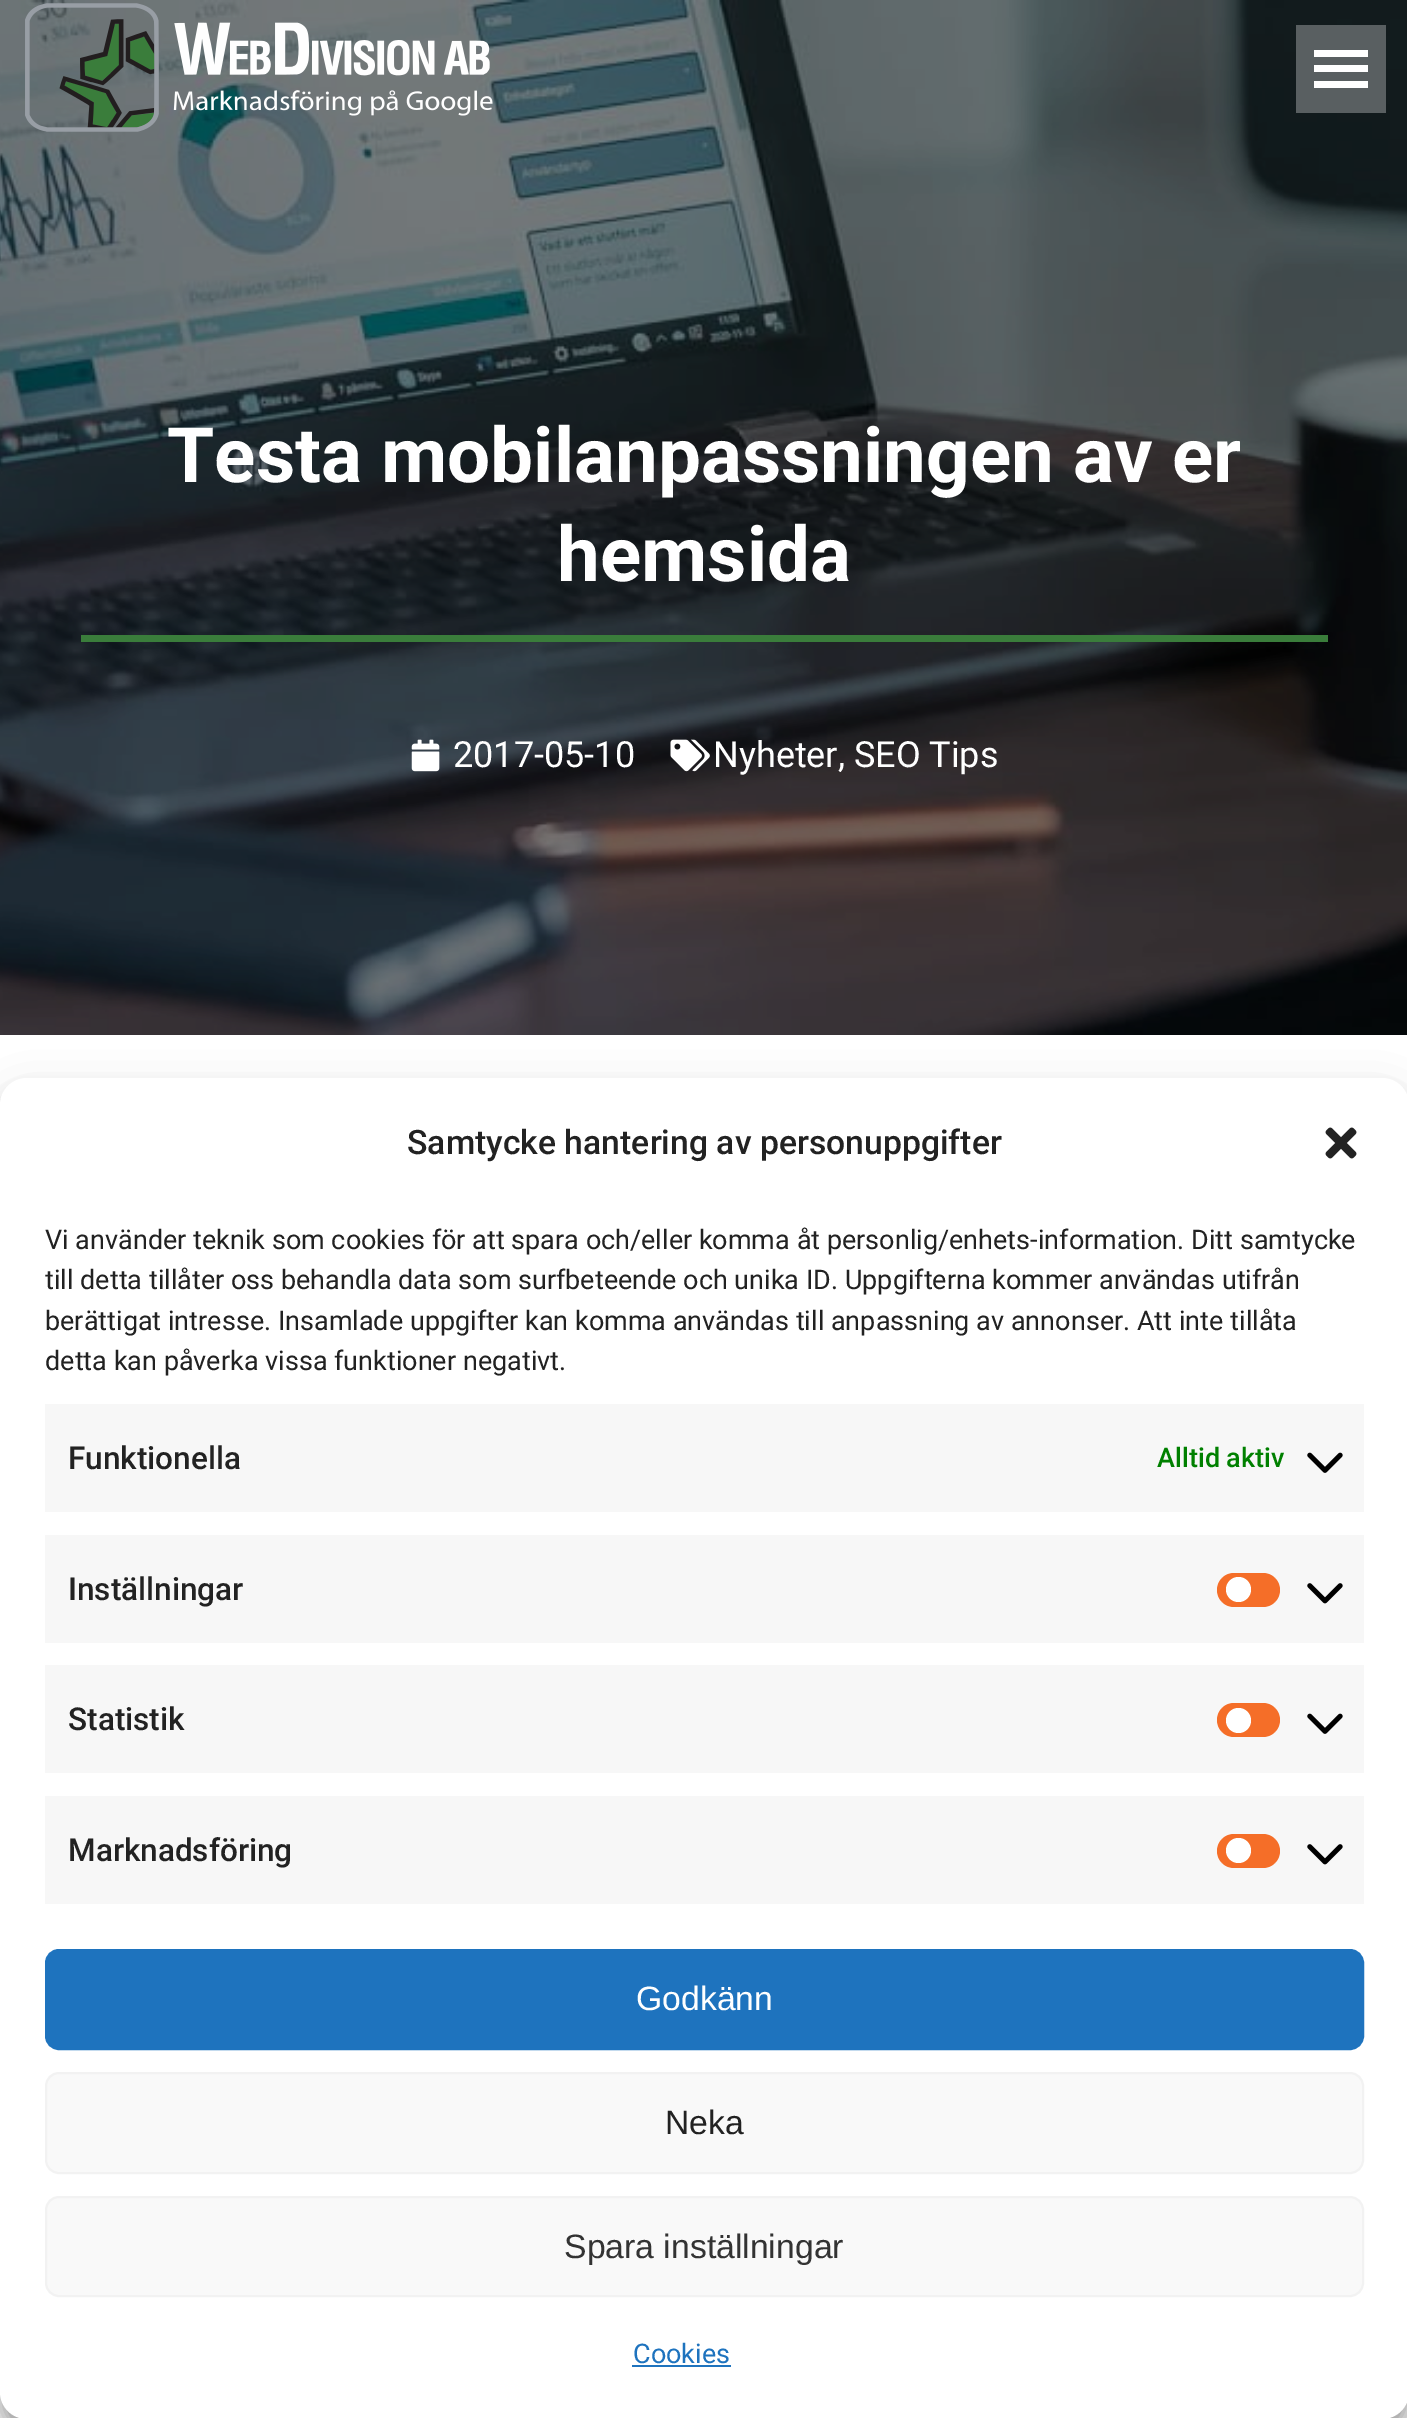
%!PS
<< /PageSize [1407 2418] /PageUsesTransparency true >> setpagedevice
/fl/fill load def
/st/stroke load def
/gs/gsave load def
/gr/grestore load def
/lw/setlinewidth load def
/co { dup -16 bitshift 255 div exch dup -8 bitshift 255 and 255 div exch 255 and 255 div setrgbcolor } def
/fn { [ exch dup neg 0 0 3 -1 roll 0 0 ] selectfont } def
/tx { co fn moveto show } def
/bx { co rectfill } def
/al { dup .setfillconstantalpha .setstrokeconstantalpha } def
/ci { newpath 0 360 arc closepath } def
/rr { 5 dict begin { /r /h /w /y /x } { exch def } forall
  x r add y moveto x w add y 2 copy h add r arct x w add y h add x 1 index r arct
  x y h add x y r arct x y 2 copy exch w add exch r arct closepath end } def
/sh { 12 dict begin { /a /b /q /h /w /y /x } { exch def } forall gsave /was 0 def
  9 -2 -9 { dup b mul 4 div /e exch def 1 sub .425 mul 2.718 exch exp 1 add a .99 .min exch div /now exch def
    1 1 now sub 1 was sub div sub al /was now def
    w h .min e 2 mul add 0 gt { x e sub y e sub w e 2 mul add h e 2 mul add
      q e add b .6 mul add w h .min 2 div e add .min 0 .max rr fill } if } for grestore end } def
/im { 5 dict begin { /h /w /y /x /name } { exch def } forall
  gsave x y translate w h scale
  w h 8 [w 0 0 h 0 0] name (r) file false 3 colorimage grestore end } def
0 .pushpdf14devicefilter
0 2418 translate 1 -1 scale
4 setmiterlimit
0 0 1407 2418 16#FFFFFF bx
(media/2.raw) 0 0 1407 1035 im
(media/1.raw) 25 3 468 129 im
1296 25 90 88 16#595F61 bx
1314 50 54 7 16#FFFFFF bx
1314 65 54 7 16#FFFFFF bx
1314 81 54 7 16#FFFFFF bx
81 635 1247 7 16#3A7D3B bx
(media/3.raw) 411 739 29 33 im
(media/4.raw) 670 739 40 33 im
16#000000 co
0 1091 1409 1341 27 7 .23 sh
0 1100 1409 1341 27 22.5 .19 sh
16#FFFFFF co
0 1078 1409 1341 27 rr fl
(media/5.raw) 1325 1127 32 32 im
45 1404 1319 108 16#F7F7F7 bx
(media/6.raw) 1307 1452 36 21 im
45 1535 1319 108 16#F7F7F7 bx
16#F56E28 co
1217 1573 63 34 17 rr fl
16#FFFFFF co
1238.5 1589.5 12.5 ci fl
(media/7.raw) 1307 1583 36 21 im
45 1665 1319 108 16#F7F7F7 bx
16#F56E28 co
1217 1703 63 34 17 rr fl
16#FFFFFF co
1238.5 1720.5 12.5 ci fl
(media/6.raw) 1307 1713 36 21 im
45 1796 1319 108 16#F7F7F7 bx
16#F56E28 co
1217 1834 63 34 17 rr fl
16#FFFFFF co
1238.5 1850.5 12.5 ci fl
(media/7.raw) 1307 1844 36 21 im
16#1E73BE co
46 1950 1317 99 13 rr gs fl gr
2 lw
st
16#F9F9F9 co
46 2073 1317 100 13 rr gs fl gr
16#F2F2F2 co
st
16#F9F9F9 co
46 2197 1317 99 13 rr gs fl gr
16#F2F2F2 co
st
632 2365 99 2 16#1E73BE bx
(Testa mobilanpassningen av er) 167 482 /Roboto-Bold 76.5 16#FFFFFF tx
(hemsida) 557 581 /Roboto-Bold 76.5 16#FFFFFF tx
(2017-05-10) 453 767 /Roboto-Regular 36 16#FFFFFF tx
(Nyheter, SEO Tips) 713 767 /Roboto-Regular 36 16#FFFFFF tx
(Samtycke hantering av personuppgifter) 407 1154 /Roboto-Medium 33.75 16#222222 tx
(Vi använder teknik som cookies för att spara och/eller komma åt personlig/enhets-information. Ditt samtycke) 45 1249 /Roboto-Regular 27 16#222222 tx
(till detta tillåter oss behandla data som surfbeteende och unika ID. Uppgifterna kommer användas utifrån) 45 1289 /Roboto-Regular 27 16#222222 tx
(berättigat intresse. Insamlade uppgifter kan komma användas till anpassning av annonser. Att inte tillåta) 45 1330 /Roboto-Regular 27 16#222222 tx
(detta kan påverka vissa funktioner negativt.) 45 1370 /Roboto-Regular 27 16#222222 tx
(Funktionella) 68 1469 /Roboto-Medium 31.5 16#222222 tx
(Alltid aktiv) 1157 1467 /Roboto-Medium 27 16#008000 tx
(Inställningar) 68 1600 /Roboto-Medium 31.5 16#222222 tx
(Statistik) 68 1730 /Roboto-Medium 31.5 16#222222 tx
(Marknadsföring) 68 1861 /Roboto-Medium 31.5 16#222222 tx
(Godkänn) 636 2010 /LiberationSans-Regular 33.75 16#FFFFFF tx
(Neka) 665 2134 /LiberationSans-Regular 33.75 16#222222 tx
(Spara inställningar) 564 2258 /LiberationSans-Regular 33.75 16#333333 tx
(Cookies) 633 2363 /Roboto-Regular 27 16#1E73BE tx
.poppdf14devicefilter showpage
